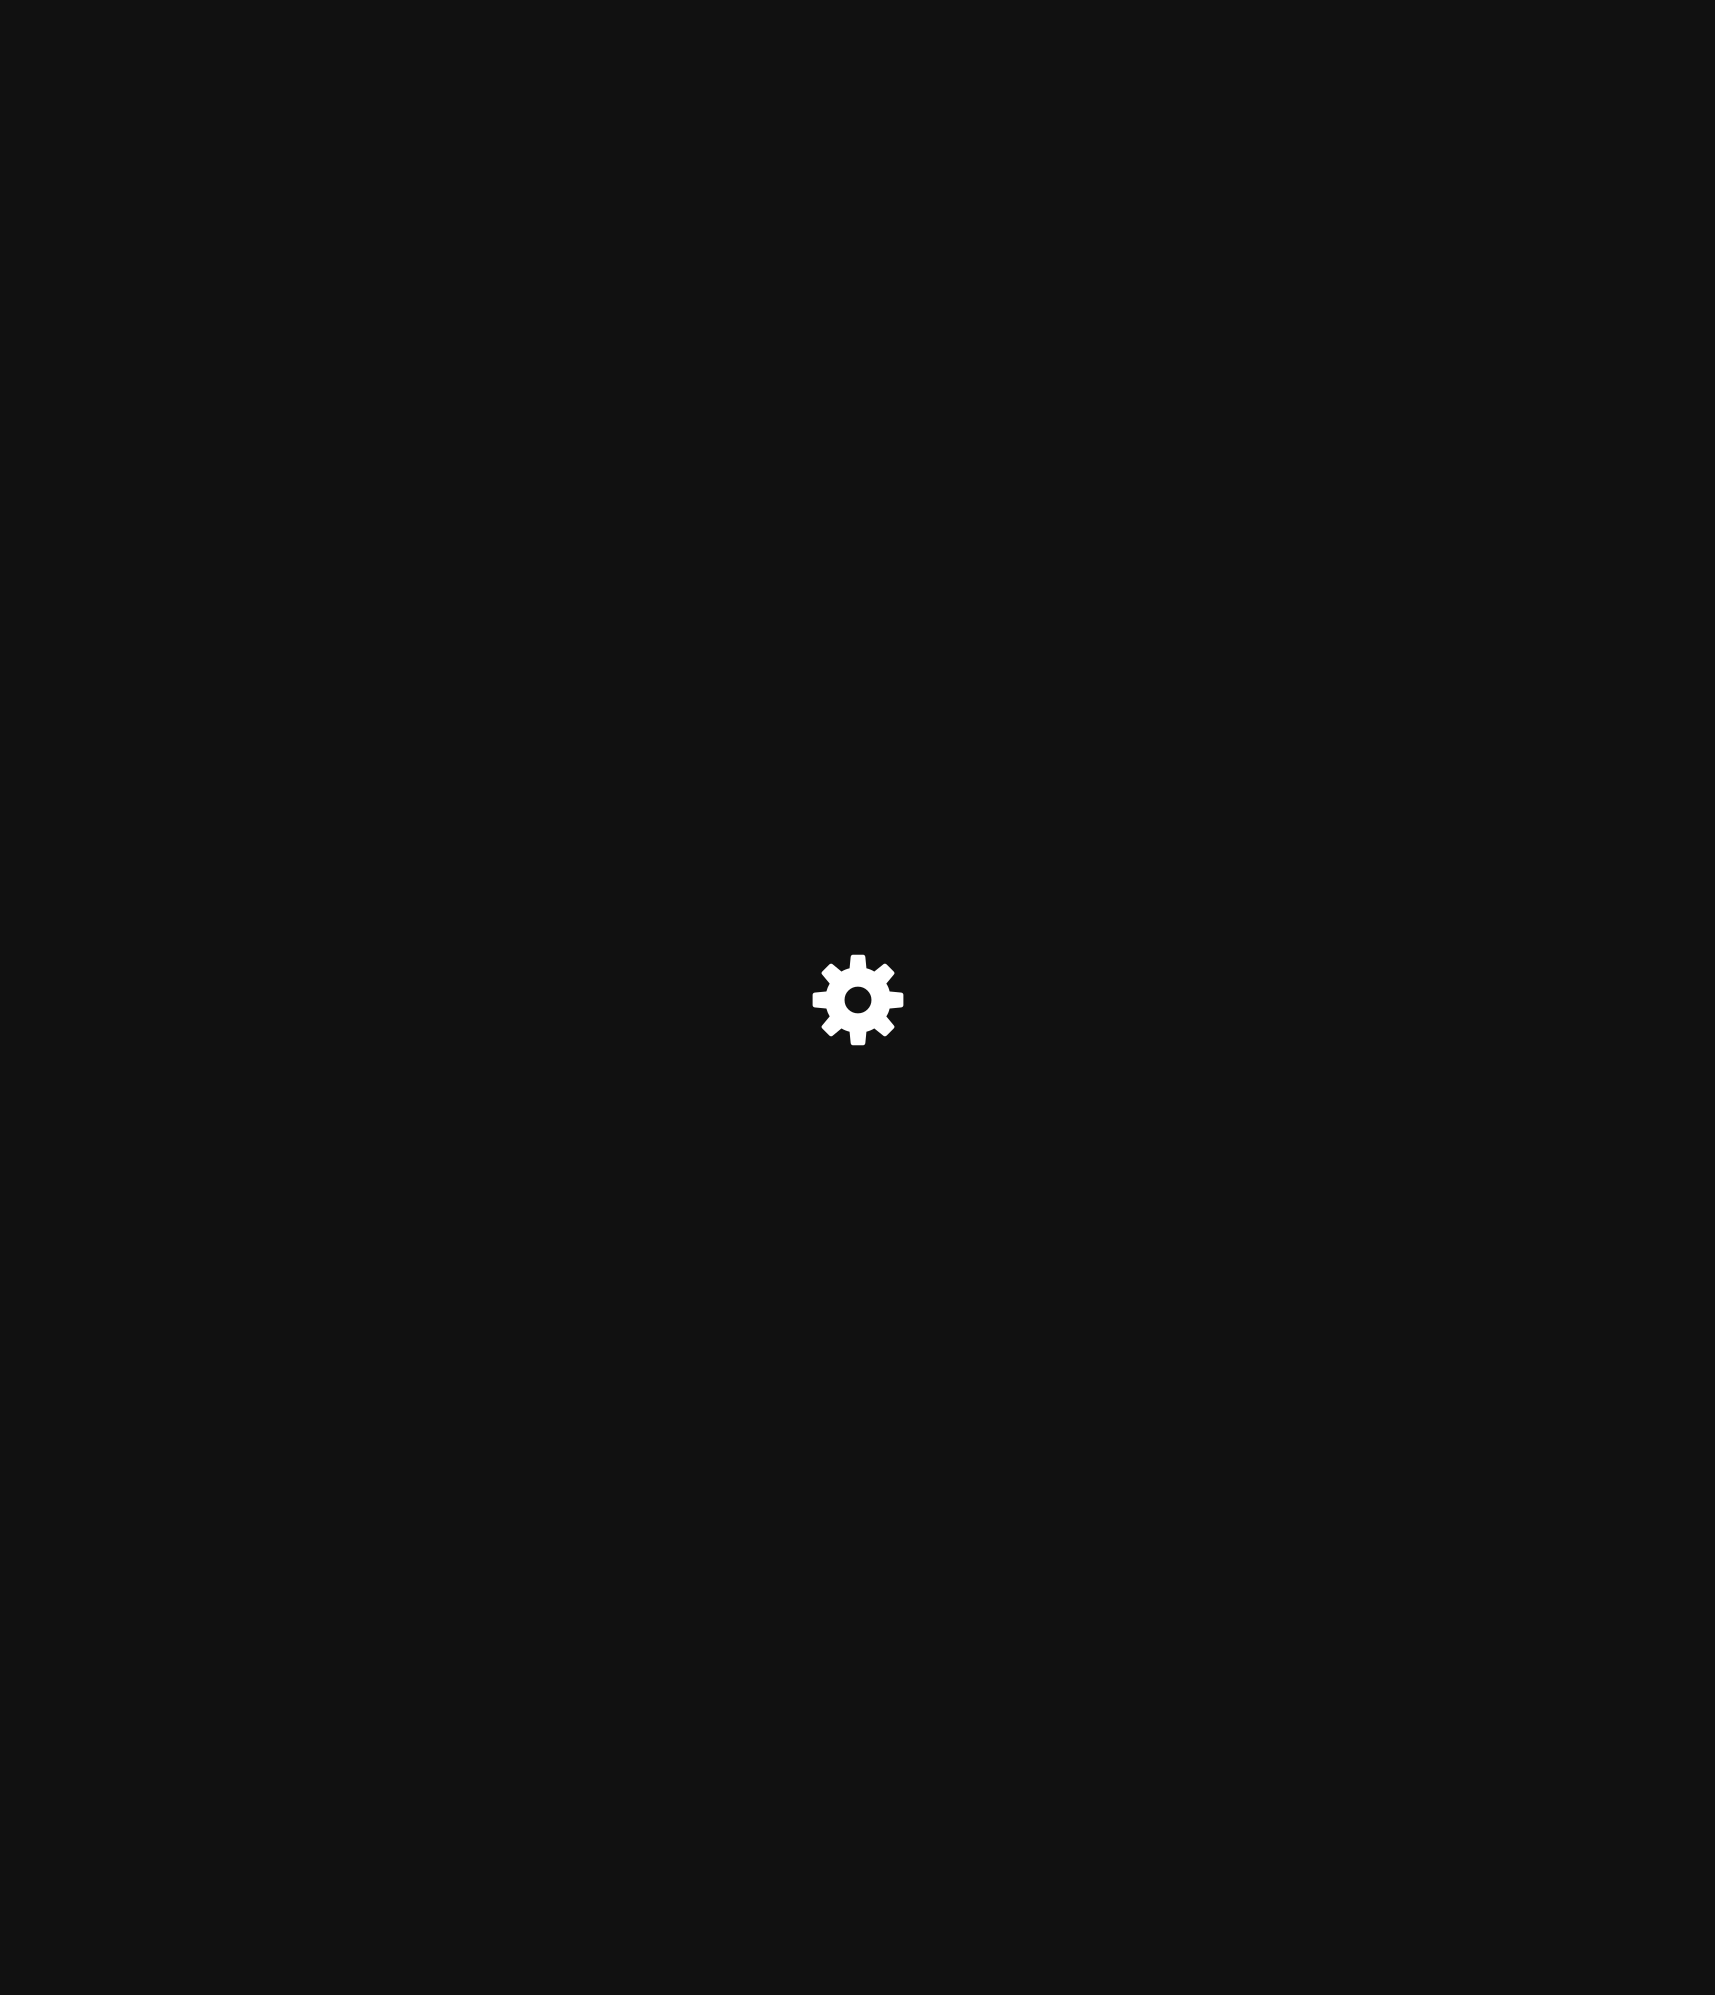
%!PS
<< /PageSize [1715 1995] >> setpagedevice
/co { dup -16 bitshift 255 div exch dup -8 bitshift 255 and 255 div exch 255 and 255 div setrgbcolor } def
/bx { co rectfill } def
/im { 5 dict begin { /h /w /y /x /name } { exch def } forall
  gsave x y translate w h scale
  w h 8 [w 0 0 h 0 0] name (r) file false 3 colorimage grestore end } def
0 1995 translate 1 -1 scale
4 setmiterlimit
0 0 1715 1995 16#111111 bx
(media/1.raw) 812 954 92 92 im
showpage
